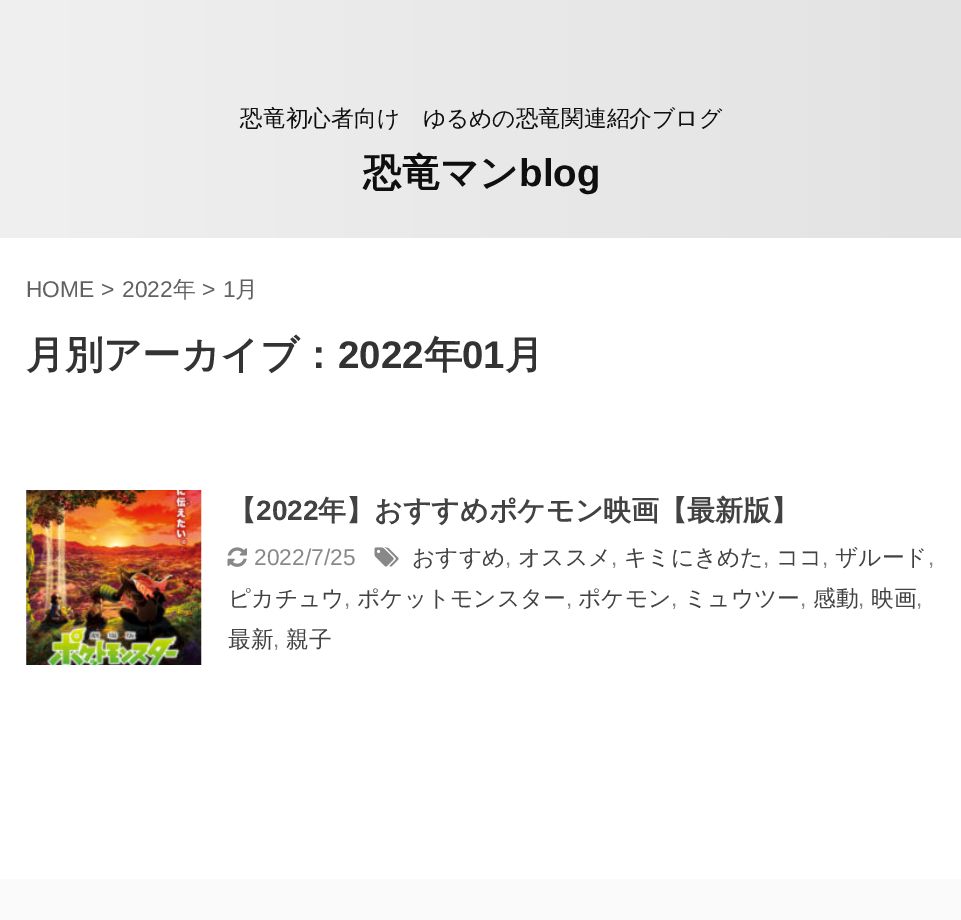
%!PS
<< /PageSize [961 920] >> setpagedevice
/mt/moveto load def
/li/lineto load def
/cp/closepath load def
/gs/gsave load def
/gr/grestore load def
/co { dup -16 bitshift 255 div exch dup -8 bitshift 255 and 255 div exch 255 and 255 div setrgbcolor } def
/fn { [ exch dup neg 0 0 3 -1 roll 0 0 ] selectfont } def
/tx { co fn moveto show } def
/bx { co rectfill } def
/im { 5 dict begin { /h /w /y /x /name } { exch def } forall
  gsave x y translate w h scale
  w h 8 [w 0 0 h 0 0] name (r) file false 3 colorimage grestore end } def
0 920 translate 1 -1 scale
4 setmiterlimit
0 0 961 920 16#FAFAFA bx
gs 0 0 mt 961 0 li 961 238 li 0 238 li cp clip newpath
<< /ShadingType 2 /ColorSpace /DeviceRGB /Coords [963 119 0 119] /Extend [true true] /Function << /FunctionType 2 /Domain [0 1] /C0 [.89 .89 .89] /C1 [.941 .941 .941] /N 1 >> >> shfill gr
0 238 961 641 16#FFFFFF bx
(media/1.raw) 26 490 176 175 im
(media/2.raw) 374 547 25 20 im
(media/3.raw) 227 547 20 20 im
(恐竜初心者向け　ゆるめの恐竜関連紹介ブログ) 240 126 /WenQuanYiZenHei-Medium 22.75 16#0F0F0F tx
(恐竜マン) 363 186 /WenQuanYiZenHei-Bold 38.5 16#0F0F0F tx
(blog) 519 186 /LiberationSans-Bold 38.5 16#0F0F0F tx
(HOME >) 26 297 /LiberationSans-Regular 22.75 16#616161 tx
(2022) 122 297 /LiberationSans-Regular 22.75 16#616161 tx
(年) 173 297 /WenQuanYiZenHei-Medium 22.75 16#616161 tx
(>) 202 297 /LiberationSans-Regular 22.75 16#616161 tx
(1) 223 297 /LiberationSans-Regular 22.75 16#616161 tx
(月) 235 297 /WenQuanYiZenHei-Medium 22.75 16#616161 tx
(月別アーカイブ：) 26 368 /WenQuanYiZenHei-Bold 38.5 16#333333 tx
(2022) 338 368 /LiberationSans-Bold 38.5 16#333333 tx
(年) 424 368 /WenQuanYiZenHei-Bold 38.5 16#333333 tx
(01) 462 368 /LiberationSans-Bold 38.5 16#333333 tx
(月) 505 368 /WenQuanYiZenHei-Bold 38.5 16#333333 tx
(【) 228 520 /WenQuanYiZenHei-Bold 28 16#424242 tx
(2022) 256 520 /LiberationSans-Bold 28 16#424242 tx
(年】おすすめポケモン映画【最新版】) 318 520 /WenQuanYiZenHei-Bold 28 16#424242 tx
(おすすめ) 412 565 /WenQuanYiZenHei-Medium 22.75 16#424242 tx
(,) 505 565 /LiberationSans-Regular 22.75 16#888888 tx
(オススメ) 518 565 /WenQuanYiZenHei-Medium 22.75 16#424242 tx
(,) 611 565 /LiberationSans-Regular 22.75 16#888888 tx
(キミにきめた) 624 565 /WenQuanYiZenHei-Medium 22.75 16#424242 tx
(,) 763 565 /LiberationSans-Regular 22.75 16#888888 tx
(ココ) 776 565 /WenQuanYiZenHei-Medium 22.75 16#424242 tx
(,) 822 565 /LiberationSans-Regular 22.75 16#888888 tx
(ザルード) 835 565 /WenQuanYiZenHei-Medium 22.75 16#424242 tx
(,) 928 565 /LiberationSans-Regular 22.75 16#888888 tx
(ピカチュウ) 228 606 /WenQuanYiZenHei-Medium 22.75 16#424242 tx
(,) 344 606 /LiberationSans-Regular 22.75 16#888888 tx
(ポケットモンスター) 357 606 /WenQuanYiZenHei-Medium 22.75 16#424242 tx
(,) 566 606 /LiberationSans-Regular 22.75 16#888888 tx
(ポケモン) 578 606 /WenQuanYiZenHei-Medium 22.75 16#424242 tx
(,) 671 606 /LiberationSans-Regular 22.75 16#888888 tx
(ミュウツー) 684 606 /WenQuanYiZenHei-Medium 22.75 16#424242 tx
(,) 800 606 /LiberationSans-Regular 22.75 16#888888 tx
(感動) 813 606 /WenQuanYiZenHei-Medium 22.75 16#424242 tx
(,) 858 606 /LiberationSans-Regular 22.75 16#888888 tx
(映画) 871 606 /WenQuanYiZenHei-Medium 22.75 16#424242 tx
(,) 916 606 /LiberationSans-Regular 22.75 16#888888 tx
(最新) 228 647 /WenQuanYiZenHei-Medium 22.75 16#424242 tx
(,) 273 647 /LiberationSans-Regular 22.75 16#888888 tx
(親子) 286 647 /WenQuanYiZenHei-Medium 22.75 16#424242 tx
(2022/7/25) 254 565 /LiberationSans-Regular 22.75 16#888888 tx
showpage
